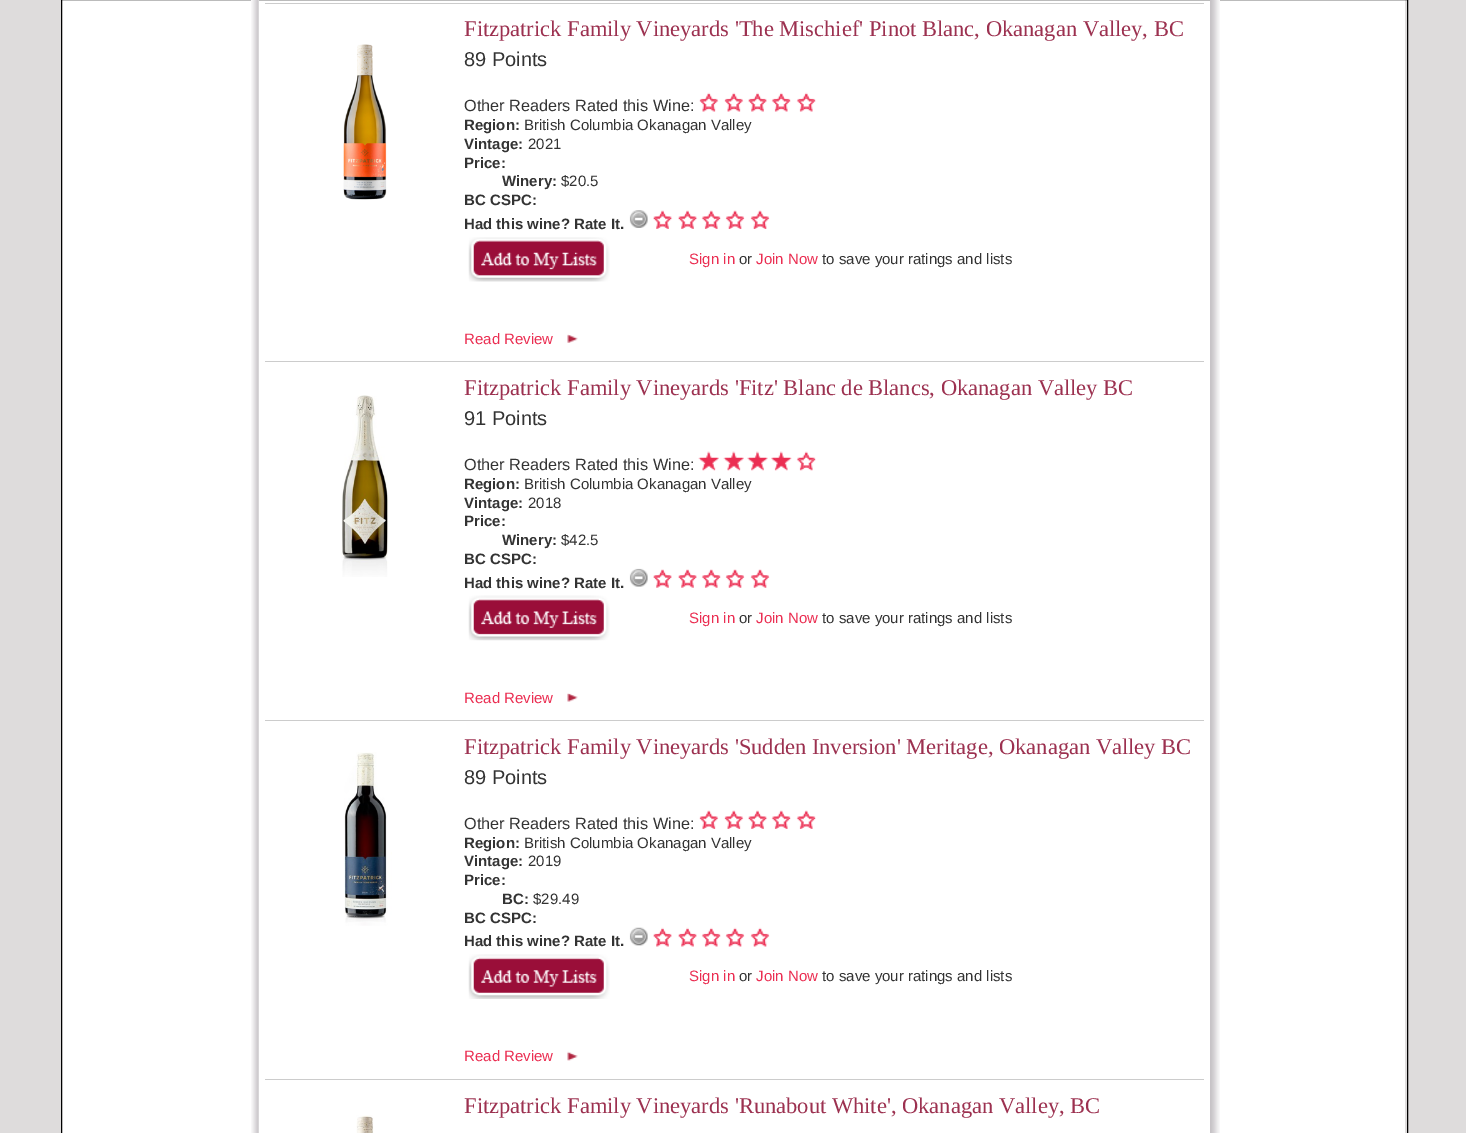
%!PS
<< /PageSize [1466 1133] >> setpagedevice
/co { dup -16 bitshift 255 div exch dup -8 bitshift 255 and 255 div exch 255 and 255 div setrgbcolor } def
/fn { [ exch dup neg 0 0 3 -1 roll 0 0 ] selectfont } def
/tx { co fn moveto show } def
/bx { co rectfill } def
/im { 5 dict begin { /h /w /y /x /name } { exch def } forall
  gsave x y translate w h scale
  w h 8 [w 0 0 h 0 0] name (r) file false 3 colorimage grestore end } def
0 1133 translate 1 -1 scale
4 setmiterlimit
0 0 1466 1133 16#DEDCDC bx
62 0 1343 1133 16#FFFFFF bx
16#000000 co
61.5 -.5 1346 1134 rectstroke
(media/1.raw) 251 0 8 1133 im
265 3 939 1 16#CCCCCC bx
265 361 939 1 16#CCCCCC bx
(media/2.raw) 343 44 44 156 im
(media/3.raw) 699 92 20 20 im
(media/3.raw) 724 92 20 20 im
(media/4.raw) 748 92 19 20 im
(media/5.raw) 771 92 20 20 im
(media/5.raw) 796 92 20 20 im
(media/6.raw) 629 210 19 18 im
(media/7.raw) 653 210 20 19 im
(media/7.raw) 678 210 20 19 im
(media/8.raw) 701 210 20 19 im
(media/9.raw) 725 210 20 19 im
(media/10.raw) 750 210 20 19 im
(media/11.raw) 468 237 142 45 im
(media/12.raw) 567 334 11 9 im
265 720 939 1 16#CCCCCC bx
(media/13.raw) 341 395 48 182 im
(media/14.raw) 698 451 21 20 im
(media/14.raw) 723 451 21 20 im
(media/15.raw) 747 451 21 20 im
(media/16.raw) 771 451 21 20 im
(media/17.raw) 796 451 20 20 im
(media/18.raw) 629 568 19 19 im
(media/19.raw) 653 569 19 19 im
(media/19.raw) 678 569 19 19 im
(media/20.raw) 701 569 20 19 im
(media/21.raw) 725 569 20 19 im
(media/22.raw) 750 569 20 19 im
(media/23.raw) 468 595 142 46 im
(media/24.raw) 567 693 11 9 im
265 1079 939 1 16#CCCCCC bx
(media/25.raw) 344 752 48 174 im
(media/26.raw) 699 810 20 19 im
(media/26.raw) 724 810 20 19 im
(media/7.raw) 748 810 20 19 im
(media/8.raw) 771 810 20 19 im
(media/8.raw) 796 810 20 19 im
(media/27.raw) 629 927 19 19 im
(media/4.raw) 653 927 19 20 im
(media/4.raw) 678 927 19 20 im
(media/5.raw) 701 927 20 20 im
(media/28.raw) 725 927 20 20 im
(media/29.raw) 750 927 20 20 im
(media/30.raw) 468 954 142 45 im
(media/31.raw) 567 1051 11 10 im
(media/32.raw) 356 1115 18 18 im
(media/33.raw) 1210 0 10 1133 im
(Fitzpatrick Family Vineyards 'The Mischief' Pinot Blanc, Okanagan Valley, BC) 464 36 /LiberationSerif-Regular 22.5 16#9C3150 tx
(89 Points) 464 66 /LiberationSans-Regular 20 16#333333 tx
(Other Readers Rated this Wine:) 464 111 /LiberationSans-Regular 16.25 16#333333 tx
(Region:) 464 130 /LiberationSans-Bold 15 16#333333 tx
(British Columbia Okanagan Valley) 524 130 /LiberationSans-Regular 15 16#333333 tx
(Vintage:) 464 149 /LiberationSans-Bold 15 16#333333 tx
(2021) 528 149 /LiberationSans-Regular 15 16#333333 tx
(Price:) 464 168 /LiberationSans-Bold 15 16#333333 tx
(Winery:) 502 186 /LiberationSans-Bold 15 16#333333 tx
($20.5) 561 186 /LiberationSans-Regular 15 16#333333 tx
(BC CSPC:) 464 205 /LiberationSans-Bold 15 16#333333 tx
(Had this wine? Rate It.) 464 229 /LiberationSans-Bold 15 16#333333 tx
(Sign in) 689 264 /LiberationSans-Regular 15 16#EB2E52 tx
(or) 739 264 /LiberationSans-Regular 15 16#333333 tx
(Join Now) 756 264 /LiberationSans-Regular 15 16#EB2E52 tx
(to save your ratings and lists) 822 264 /LiberationSans-Regular 15 16#333333 tx
(Read Review) 464 344 /LiberationSans-Regular 15 16#EB2E52 tx
(Fitzpatrick Family Vineyards 'Fitz' Blanc de Blancs, Okanagan Valley BC) 464 395 /LiberationSerif-Regular 22.5 16#9C3150 tx
(91 Points) 464 425 /LiberationSans-Regular 20 16#333333 tx
(Other Readers Rated this Wine:) 464 470 /LiberationSans-Regular 16.25 16#333333 tx
(Region:) 464 489 /LiberationSans-Bold 15 16#333333 tx
(British Columbia Okanagan Valley) 524 489 /LiberationSans-Regular 15 16#333333 tx
(Vintage:) 464 508 /LiberationSans-Bold 15 16#333333 tx
(2018) 528 508 /LiberationSans-Regular 15 16#333333 tx
(Price:) 464 526 /LiberationSans-Bold 15 16#333333 tx
(Winery:) 502 545 /LiberationSans-Bold 15 16#333333 tx
($42.5) 561 545 /LiberationSans-Regular 15 16#333333 tx
(BC CSPC:) 464 564 /LiberationSans-Bold 15 16#333333 tx
(Had this wine? Rate It.) 464 588 /LiberationSans-Bold 15 16#333333 tx
(Sign in) 689 623 /LiberationSans-Regular 15 16#EB2E52 tx
(or) 739 623 /LiberationSans-Regular 15 16#333333 tx
(Join Now) 756 623 /LiberationSans-Regular 15 16#EB2E52 tx
(to save your ratings and lists) 822 623 /LiberationSans-Regular 15 16#333333 tx
(Read Review) 464 703 /LiberationSans-Regular 15 16#EB2E52 tx
(Fitzpatrick Family Vineyards 'Sudden Inversion' Meritage, Okanagan Valley BC) 464 754 /LiberationSerif-Regular 22.5 16#9C3150 tx
(89 Points) 464 784 /LiberationSans-Regular 20 16#333333 tx
(Other Readers Rated this Wine:) 464 829 /LiberationSans-Regular 16.25 16#333333 tx
(Region:) 464 848 /LiberationSans-Bold 15 16#333333 tx
(British Columbia Okanagan Valley) 524 848 /LiberationSans-Regular 15 16#333333 tx
(Vintage:) 464 866 /LiberationSans-Bold 15 16#333333 tx
(2019) 528 866 /LiberationSans-Regular 15 16#333333 tx
(Price:) 464 885 /LiberationSans-Bold 15 16#333333 tx
(BC:) 502 904 /LiberationSans-Bold 15 16#333333 tx
($29.49) 533 904 /LiberationSans-Regular 15 16#333333 tx
(BC CSPC:) 464 923 /LiberationSans-Bold 15 16#333333 tx
(Had this wine? Rate It.) 464 946 /LiberationSans-Bold 15 16#333333 tx
(Sign in) 689 981 /LiberationSans-Regular 15 16#EB2E52 tx
(or) 739 981 /LiberationSans-Regular 15 16#333333 tx
(Join Now) 756 981 /LiberationSans-Regular 15 16#EB2E52 tx
(to save your ratings and lists) 822 981 /LiberationSans-Regular 15 16#333333 tx
(Read Review) 464 1061 /LiberationSans-Regular 15 16#EB2E52 tx
(Fitzpatrick Family Vineyards 'Runabout White', Okanagan Valley, BC) 464 1113 /LiberationSerif-Regular 22.5 16#9C3150 tx
showpage
